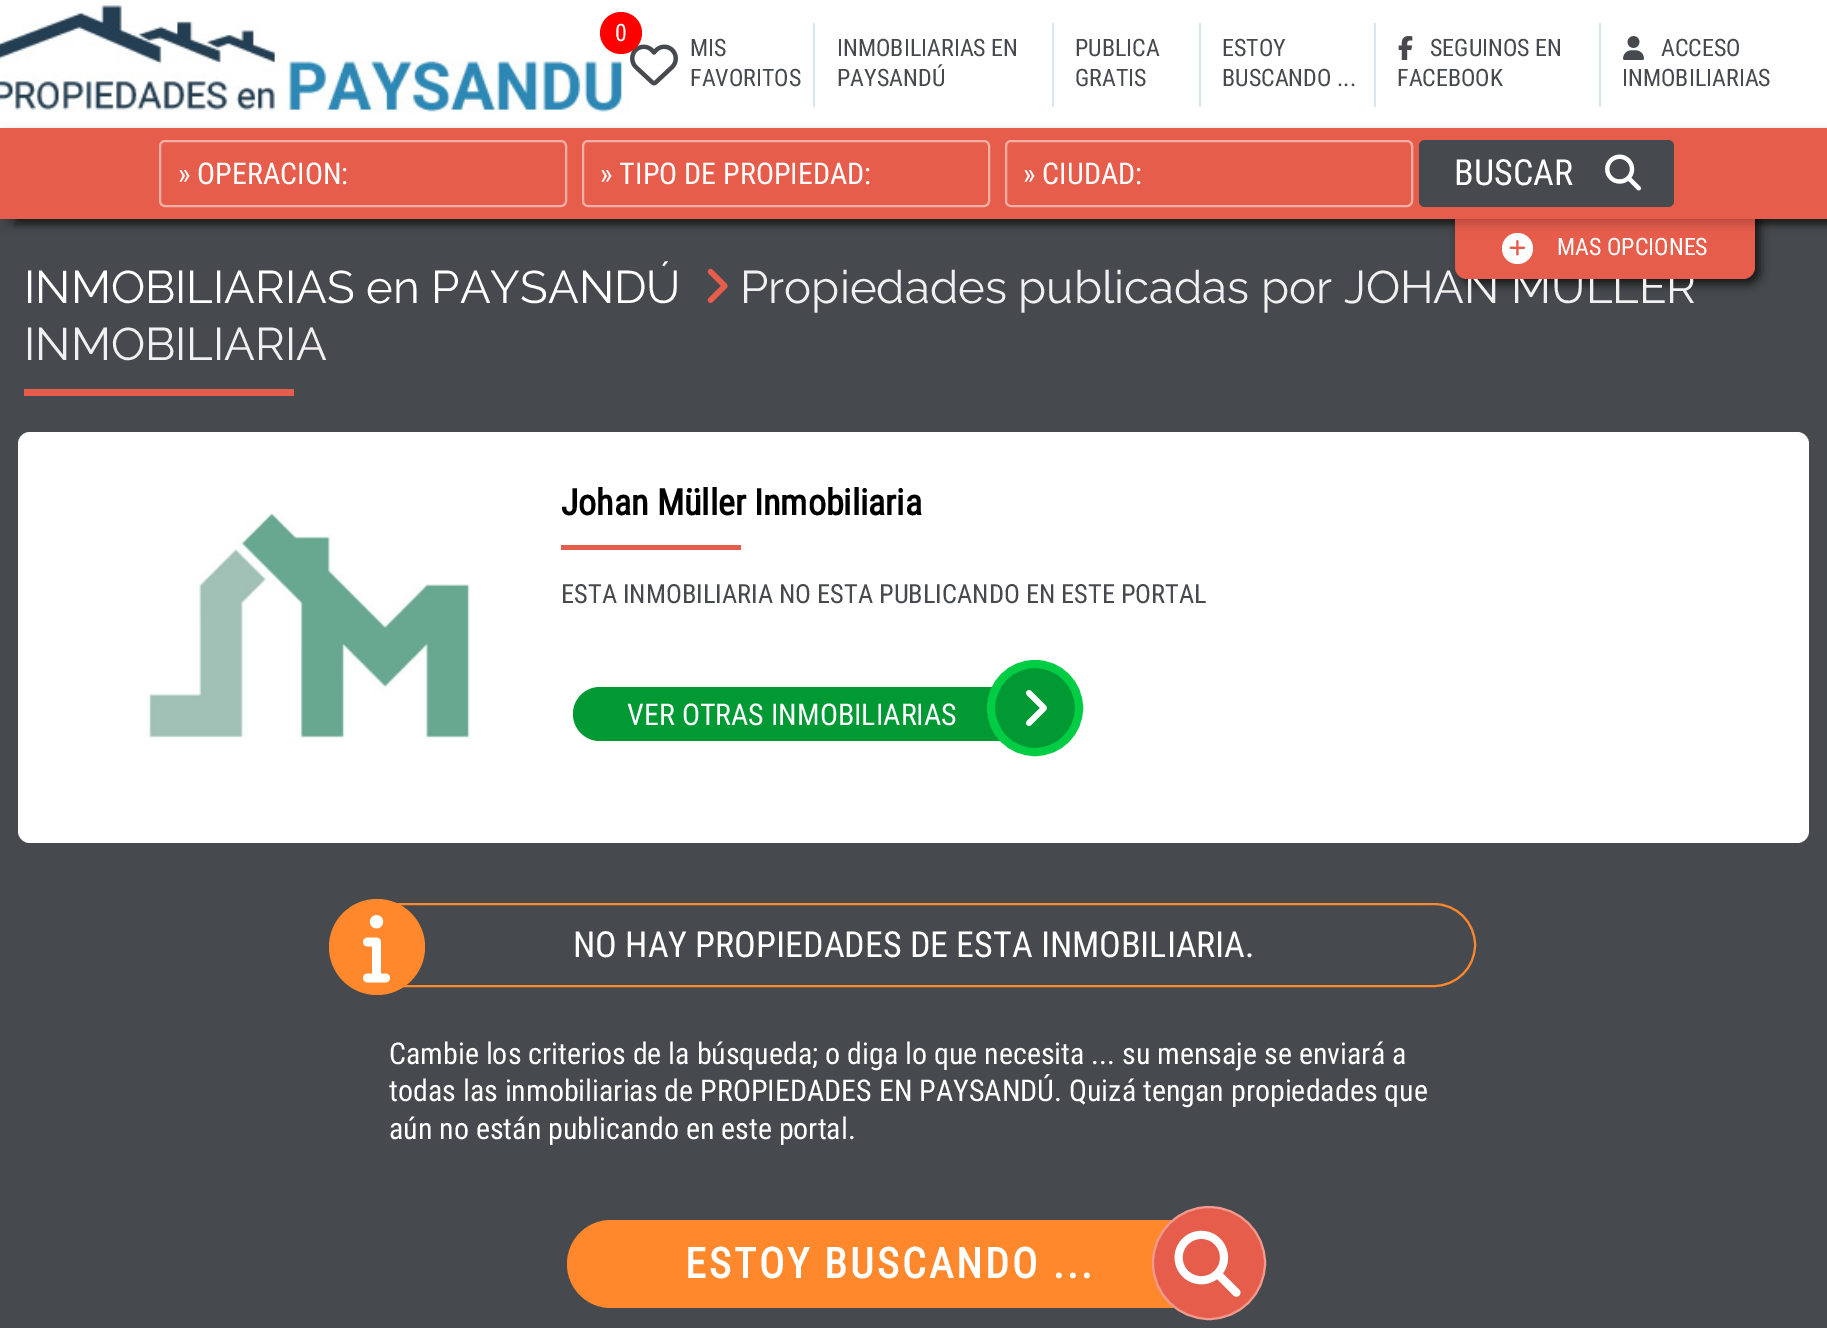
%!PS
<< /PageSize [1827 1328] /PageUsesTransparency true >> setpagedevice
/mt/moveto load def
/fl/fill load def
/st/stroke load def
/gs/gsave load def
/gr/grestore load def
/lw/setlinewidth load def
/co { dup -16 bitshift 255 div exch dup -8 bitshift 255 and 255 div exch 255 and 255 div setrgbcolor } def
/fn { [ exch dup neg 0 0 3 -1 roll 0 0 ] selectfont } def
/tx { co fn moveto show } def
/bx { co rectfill } def
/al { dup .setfillconstantalpha .setstrokeconstantalpha } def
/ci { newpath 0 360 arc closepath } def
/rr { 5 dict begin { /r /h /w /y /x } { exch def } forall
  x r add y moveto x w add y 2 copy h add r arct x w add y h add x 1 index r arct
  x y h add x y r arct x y 2 copy exch w add exch r arct closepath end } def
/sh { 12 dict begin { /a /b /q /h /w /y /x } { exch def } forall gsave /was 0 def
  9 -2 -9 { dup b mul 4 div /e exch def 1 sub .425 mul 2.718 exch exp 1 add a .99 .min exch div /now exch def
    1 1 now sub 1 was sub div sub al /was now def
    w h .min e 2 mul add 0 gt { x e sub y e sub w e 2 mul add h e 2 mul add
      q e add b .6 mul add w h .min 2 div e add .min 0 .max rr fill } if } for grestore end } def
/im { 5 dict begin { /h /w /y /x /name } { exch def } forall
  gsave x y translate w h scale
  w h 8 [w 0 0 h 0 0] name (r) file false 3 colorimage grestore end } def
0 .pushpdf14devicefilter
0 1328 translate 1 -1 scale
4 setmiterlimit
0 0 1827 1328 16#46494D bx
0 0 1827 128 16#FFFFFF bx
(media/1.raw) 0 1 629 112 im
(media/2.raw) 630 44 48 42 im
16#FF0000 co
621 33 21 ci fl
813 23 2 84 16#D5E7F0 bx
1052 23 2 84 16#D5E7F0 bx
1199 23 2 84 16#D5E7F0 bx
1374 23 2 84 16#D5E7F0 bx
(media/3.raw) 1398 36 15 24 im
1599 23 2 84 16#D5E7F0 bx
(media/4.raw) 1623 36 21 24 im
16#000000 co
15 134 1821 91 0 3 .5 sh
1460 201 300 83 12 5 .7 sh
(media/7.raw) 707 268 21 35 im
24 389 270 7 16#E75D4C bx
16#FFFFFF co
18 432 1791 411 12 rr fl
(media/8.raw) 148 513 322 226 im
561 545 180 5 16#E75D4C bx
16#009933 co
573 687 462 54 27 rr fl
1035 708 44 ci gs fl gr
16#00CC44 co
8 lw
st
(media/9.raw) 1026 690 21 36 im
16#FF872C co
2 lw
352 904 1123 82 41 rr st
377 947 48 ci fl
(media/10.raw) 363 915 27 68 im
567 1220 645 88 44 rr fl
16#E75D4C co
1209 1263 56 ci gs fl gr
16#F09A8F co
st
(media/11.raw) 1174 1230 67 67 im
(0) 615 41 /RobotoCondensed-Regular 24 16#FFFFFF tx
(MIS) 690 56 /RobotoCondensed-Regular 24 16#46494D tx
(FAVORITOS) 690 86 /RobotoCondensed-Regular 24 16#46494D tx
(INMOBILIARIAS EN) 837 56 /RobotoCondensed-Regular 24 16#46494D tx
(PAYSANDÚ) 837 86 /RobotoCondensed-Regular 24 16#46494D tx
(PUBLICA) 1075 56 /RobotoCondensed-Regular 24 16#46494D tx
(GRATIS) 1075 86 /RobotoCondensed-Regular 24 16#46494D tx
(ESTOY) 1222 56 /RobotoCondensed-Regular 24 16#46494D tx
(BUSCANDO ...) 1222 86 /RobotoCondensed-Regular 24 16#46494D tx
(SEGUINOS EN) 1430 56 /RobotoCondensed-Regular 24 16#46494D tx
(FACEBOOK) 1397 86 /RobotoCondensed-Regular 24 16#46494D tx
(ACCESO) 1661 56 /RobotoCondensed-Regular 24 16#46494D tx
(INMOBILIARIAS) 1622 86 /RobotoCondensed-Regular 24 16#46494D tx
(INMOBILIARIAS en PAYSANDÚ) 24 303 /Raleway-Thin 45.6 16#FFFFFF tx
(Propiedades publicadas por JOHAN MÜLLER) 740 303 /Raleway-Thin 45.6 16#F0F0F0 tx
16#E75D4C co
1455 197 300 82 12 rr fl
16#FFFFFF co
1517.5 248.5 15.5 ci fl
16#000000 co
5 132 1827 92 0 5 .2 sh
0 128 1827 91 16#E75D4C bx
16#46494D co
1419 140 255 67 6 rr fl
(media/5.raw) 1605 154 36 37 im
(BUSCAR) 1454 185 /RobotoCondensed-Regular 36 16#FFFFFF tx
16#F3AEA6 co
1006 141 406 65 5 rr st
(» CIUDAD:) 1023 184 /RobotoCondensed-Regular 30 16#FFFFFF tx
16#F3AEA6 co
583 141 406 65 5 rr st
(» TIPO DE PROPIEDAD:) 600 184 /RobotoCondensed-Regular 30 16#FFFFFF tx
16#F3AEA6 co
160 141 406 65 5 rr st
(» OPERACION:) 178 184 /RobotoCondensed-Regular 30 16#FFFFFF tx
(MAS OPCIONES) 1557 255 /RobotoCondensed-Regular 24 16#FFFFFF tx
(media/6.raw) 1509 240 17 16 im
(INMOBILIARIA) 24 360 /Raleway-Thin 45.6 16#F0F0F0 tx
(Johan Müller Inmobiliaria) 561 515 /RobotoCondensed-Bold 36 16#000000 tx
(ESTA INMOBILIARIA NO ESTA PUBLICANDO EN ESTE PORTAL) 561 603 /RobotoCondensed-Regular 26.4 16#46494D tx
(VER OTRAS INMOBILIARIAS) 627 725 /RobotoCondensed-Regular 30 16#FFFFFF tx
(NO HAY PROPIEDADES DE ESTA INMOBILIARIA.) 573 957 /RobotoCondensed-Regular 36 16#FFFFFF tx
(Cambie los criterios de la búsqueda; o diga lo que necesita ... su mensaje se enviará a) 389 1064 /RobotoCondensed-Regular 30 16#FFFFFF tx
(todas las inmobiliarias de PROPIEDADES EN PAYSANDÚ. Quizá tengan propiedades que) 389 1101 /RobotoCondensed-Regular 30 16#FFFFFF tx
(aún no están publicando en este portal.) 389 1139 /RobotoCondensed-Regular 30 16#FFFFFF tx
/RobotoCondensed-Bold 42 fn
685 1278 mt 3 0 (ESTOY BUSCANDO ...) ashow
.poppdf14devicefilter showpage
